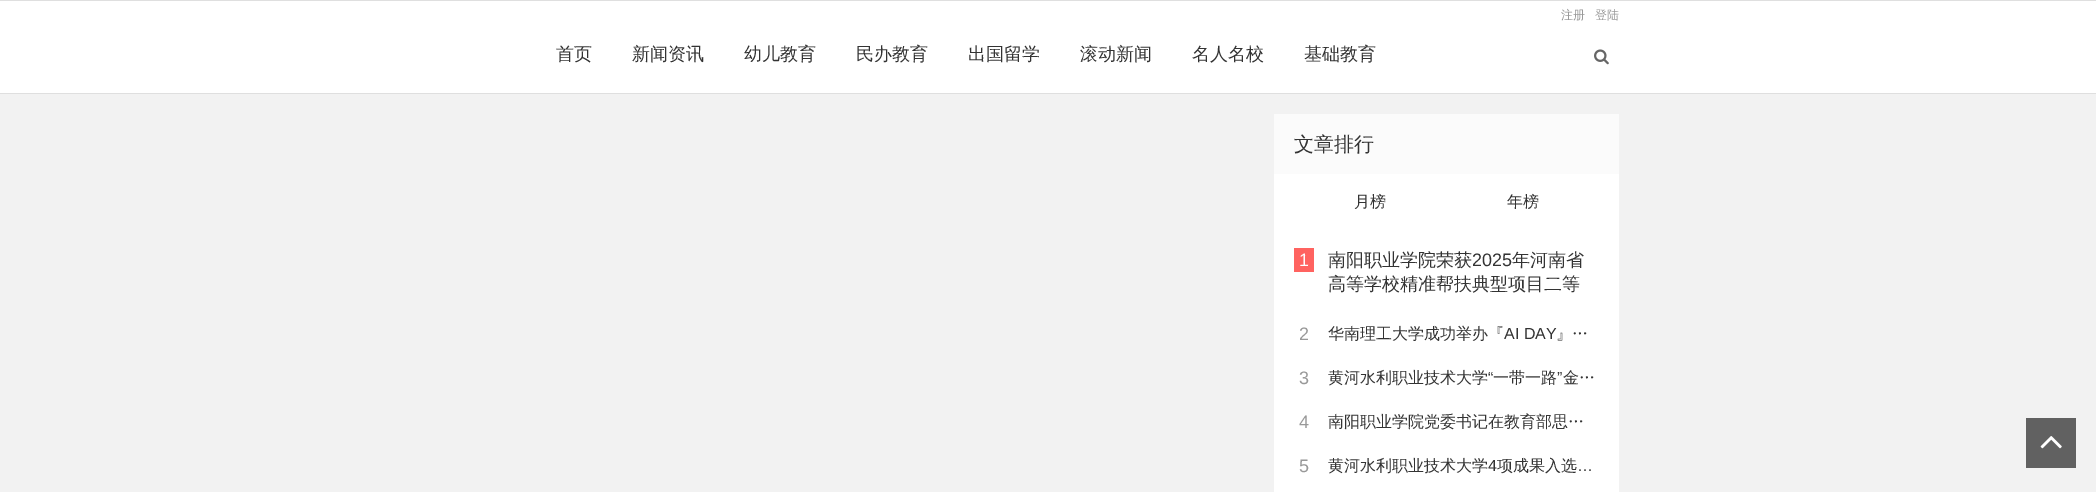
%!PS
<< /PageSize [2096 492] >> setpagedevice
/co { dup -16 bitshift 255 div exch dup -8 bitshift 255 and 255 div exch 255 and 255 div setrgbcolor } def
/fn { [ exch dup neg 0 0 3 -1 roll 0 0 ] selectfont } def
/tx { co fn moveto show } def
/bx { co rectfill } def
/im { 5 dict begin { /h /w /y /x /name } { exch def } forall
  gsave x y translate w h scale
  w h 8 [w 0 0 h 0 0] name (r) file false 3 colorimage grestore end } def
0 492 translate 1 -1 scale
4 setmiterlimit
0 0 2096 492 16#F2F2F2 bx
0 1 2096 92 16#FFFFFF bx
0 0 2096 1 16#DFDFDF bx
0 93 2096 1 16#DFDFDF bx
(media/1.raw) 1594 49 15 16 im
1274 174 345 318 16#FFFFFF bx
1274 114 345 60 16#FBFBFB bx
1294 248 20 24 16#FF6360 bx
2026 418 50 50 16#616161 bx
(media/2.raw) 2040 436 22 13 im
(注册) 1561 19 /WenQuanYiZenHei-Medium 12 16#999999 tx
(登陆) 1595 19 /WenQuanYiZenHei-Medium 12 16#999999 tx
(首页) 556 60 /WenQuanYiZenHei-Medium 18 16#333333 tx
(新闻资讯) 632 60 /WenQuanYiZenHei-Medium 18 16#333333 tx
(幼儿教育) 744 60 /WenQuanYiZenHei-Medium 18 16#333333 tx
(民办教育) 856 60 /WenQuanYiZenHei-Medium 18 16#333333 tx
(出国留学) 968 60 /WenQuanYiZenHei-Medium 18 16#333333 tx
(滚动新闻) 1080 60 /WenQuanYiZenHei-Medium 18 16#333333 tx
(名人名校) 1192 60 /WenQuanYiZenHei-Medium 18 16#333333 tx
(基础教育) 1304 60 /WenQuanYiZenHei-Medium 18 16#333333 tx
(文章排行) 1294 151 /WenQuanYiZenHei-Medium 20 16#333333 tx
(月榜) 1354 207 /WenQuanYiZenHei-Medium 16 16#333333 tx
(年榜) 1507 207 /WenQuanYiZenHei-Medium 16 16#333333 tx
(1) 1299 266 /LiberationSans-Regular 18 16#FFFFFF tx
(南阳职业学院荣获) 1328 266 /WenQuanYiZenHei-Medium 18 16#333333 tx
(2025) 1472 266 /LiberationSans-Regular 18 16#333333 tx
(年河南省) 1512 266 /WenQuanYiZenHei-Medium 18 16#333333 tx
(高等学校精准帮扶典型项目二等) 1328 290 /WenQuanYiZenHei-Medium 18 16#333333 tx
(2) 1299 340 /LiberationSans-Regular 18 16#999999 tx
(华南理工大学成功举办『) 1328 339 /WenQuanYiZenHei-Medium 16 16#333333 tx
(AI DAY) 1504 339 /LiberationSans-Regular 16 16#333333 tx
(』…) 1556 339 /WenQuanYiZenHei-Medium 16 16#333333 tx
(3) 1299 384 /LiberationSans-Regular 18 16#999999 tx
(黄河水利职业技术大学) 1328 383 /WenQuanYiZenHei-Medium 16 16#333333 tx
(“) 1488 383 /LiberationSans-Regular 16 16#333333 tx
(一带一路) 1493 383 /WenQuanYiZenHei-Medium 16 16#333333 tx
(”) 1557 383 /LiberationSans-Regular 16 16#333333 tx
(金…) 1563 383 /WenQuanYiZenHei-Medium 16 16#333333 tx
(4) 1299 428 /LiberationSans-Regular 18 16#999999 tx
(南阳职业学院党委书记在教育部思…) 1328 427 /WenQuanYiZenHei-Medium 16 16#333333 tx
(5) 1299 472 /LiberationSans-Regular 18 16#999999 tx
(黄河水利职业技术大学) 1328 471 /WenQuanYiZenHei-Medium 16 16#333333 tx
(4) 1488 471 /LiberationSans-Regular 16 16#333333 tx
(项成果入选) 1497 471 /WenQuanYiZenHei-Medium 16 16#333333 tx
(…) 1577 471 /LiberationSans-Regular 16 16#333333 tx
showpage
